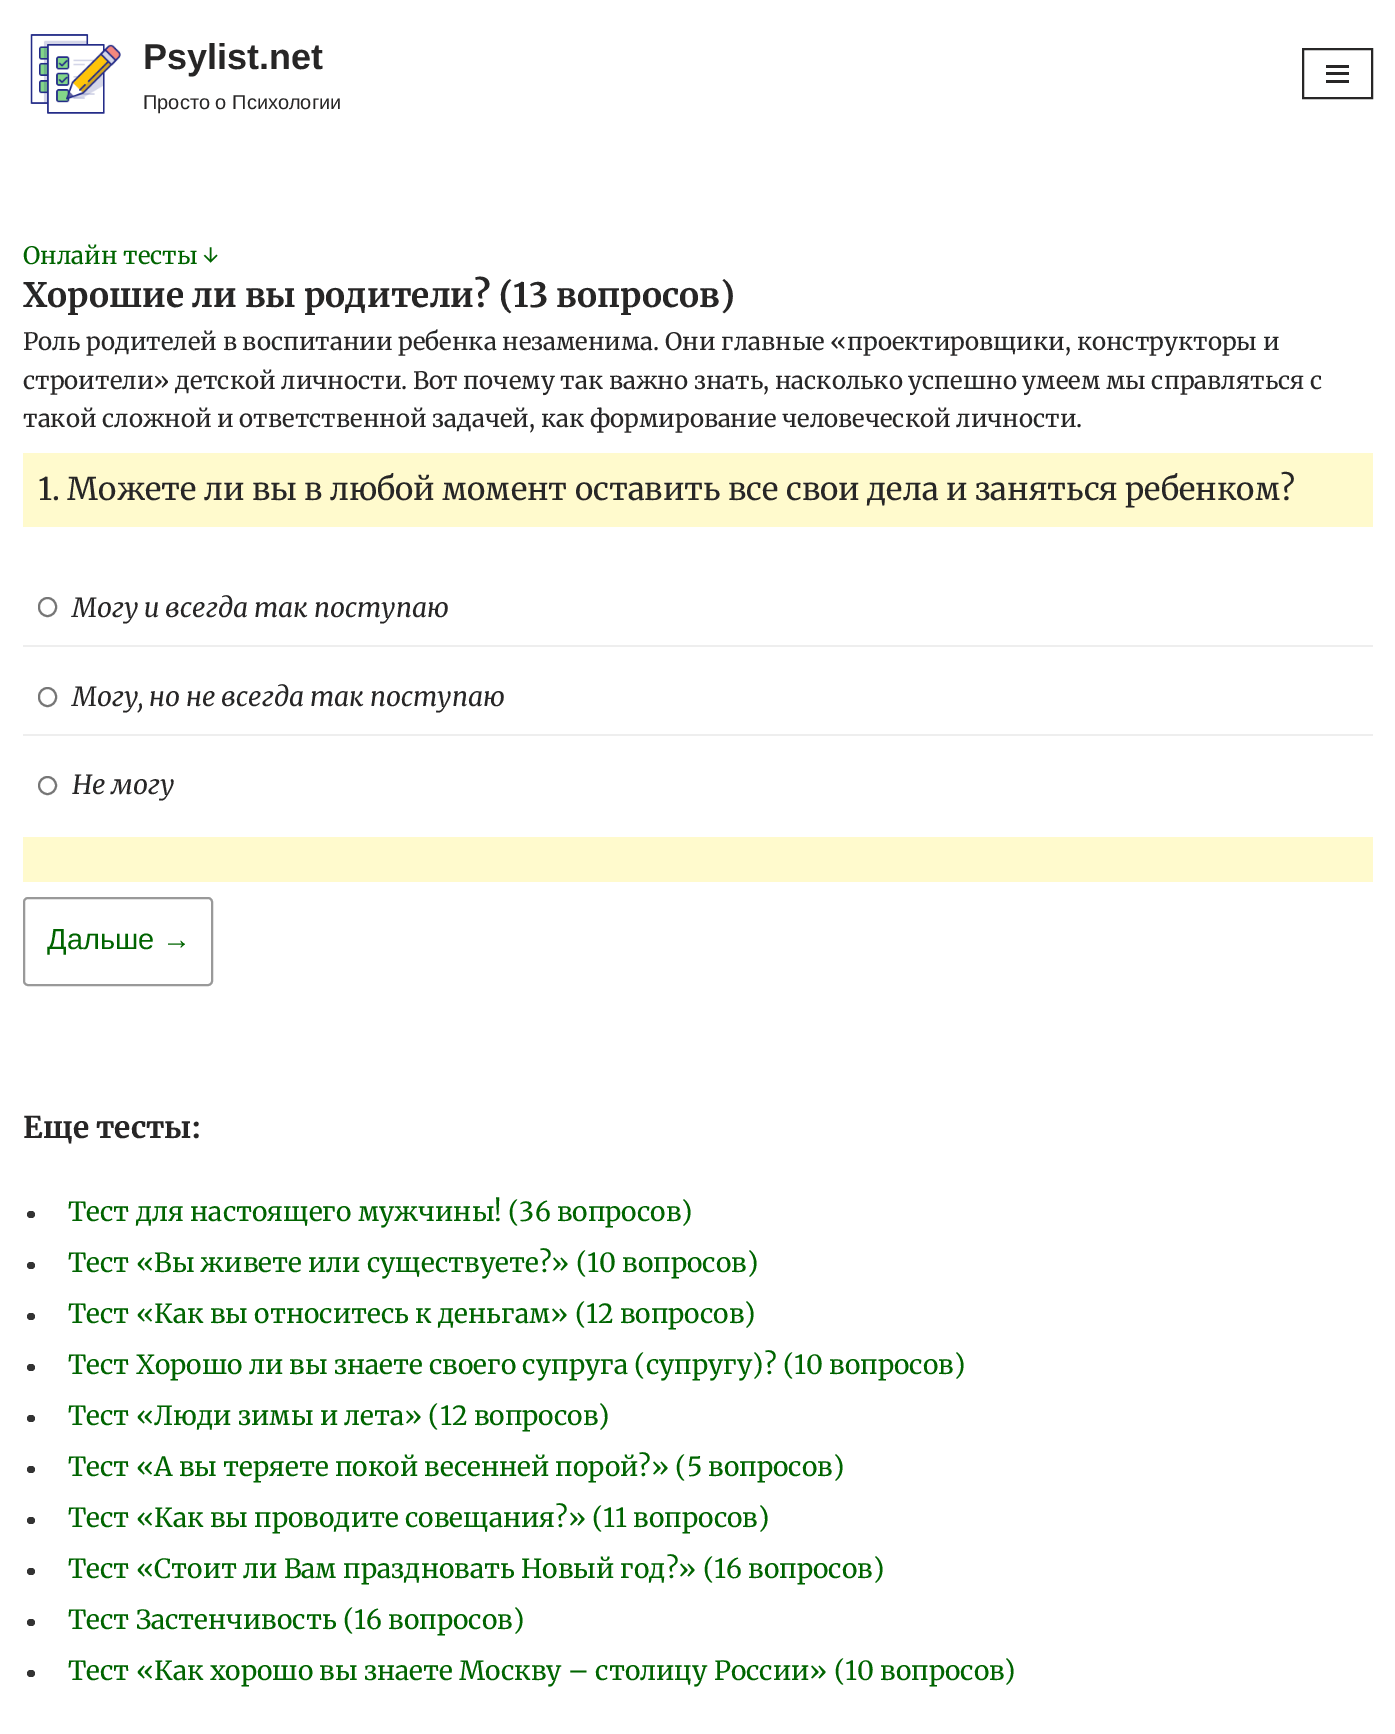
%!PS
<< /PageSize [1395 1734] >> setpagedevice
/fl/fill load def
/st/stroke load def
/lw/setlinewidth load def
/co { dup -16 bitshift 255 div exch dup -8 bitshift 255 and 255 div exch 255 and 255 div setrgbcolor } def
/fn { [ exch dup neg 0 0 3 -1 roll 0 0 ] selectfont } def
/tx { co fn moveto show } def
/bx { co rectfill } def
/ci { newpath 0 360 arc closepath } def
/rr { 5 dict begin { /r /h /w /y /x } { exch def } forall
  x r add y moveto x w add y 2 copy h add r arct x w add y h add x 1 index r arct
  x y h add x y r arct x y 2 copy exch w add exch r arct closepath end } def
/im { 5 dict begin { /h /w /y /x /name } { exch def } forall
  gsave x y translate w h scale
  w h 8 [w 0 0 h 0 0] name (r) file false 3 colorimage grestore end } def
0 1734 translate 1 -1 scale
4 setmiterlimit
0 0 1395 1734 16#FFFFFF bx
(media/1.raw) 30 34 91 80 im
16#272626 co
2 lw
1303 49 69 49 rectstroke
1326 65 23 3 16#272626 bx
1326 72 23 3 16#272626 bx
1326 80 23 3 16#272626 bx
23 453 1350 74 16#FFFACD bx
23 837 1350 45 16#FFFACD bx
23 645 1350 2 16#EEEEEE bx
16#767676 co
39 598 17 18 8.5 rr st
23 734 1350 2 16#EEEEEE bx
16#767676 co
39 688 17 18 8.5 rr st
47.5 785.5 8.5 ci st
16#999999 co
24 898 188 87 4 rr st
16#333333 co
27 1211 8 7 3.5 rr fl
27 1262 8 7 3.5 rr fl
27 1313 8 7 3.5 rr fl
27 1364 8 7 3.5 rr fl
27 1415 8 7 3.5 rr fl
27 1466 8 7 3.5 rr fl
27 1517 8 7 3.5 rr fl
27 1568 8 7 3.5 rr fl
27 1619 8 7 3.5 rr fl
27 1670 8 7 3.5 rr fl
(Psylist.net) 143 69 /LiberationSans-Bold 36 16#272626 tx
(Просто о Психологии) 143 109 /LiberationSans-Regular 20 16#272626 tx
(Онлайн тесты ↓) 23 264 /Merriweather-Regular 24 16#006400 tx
(Хорошие ли вы родители? \(13 вопросов\)) 23 307 /Merriweather-Bold 33.6 16#272626 tx
(Роль родителей в воспитании ребенка незаменима. Они главные «проектировщики, конструкторы и) 23 350 /Merriweather-Regular 24 16#272626 tx
(строители» детской личности. Вот почему так важно знать, насколько успешно умеем мы справляться с) 23 389 /Merriweather-Regular 24 16#272626 tx
(такой сложной и ответственной задачей, как формирование человеческой личности.) 23 427 /Merriweather-Regular 24 16#272626 tx
(1. Можете ли вы в любой момент оставить все свои дела и заняться ребенком?) 38 500 /Merriweather-Regular 31.2 16#272626 tx
(Могу и всегда так поступаю) 72 617 /Merriweather-Italic 26.4 16#272626 tx
(Могу, но не всегда так поступаю) 72 706 /Merriweather-Italic 26.4 16#272626 tx
(Не могу) 72 794 /Merriweather-Italic 26.4 16#272626 tx
(Дальше →) 47 949 /LiberationSans-Regular 29 16#006400 tx
(Еще тесты:) 23 1138 /Merriweather-Bold 30 16#272626 tx
(Тест для настоящего мужчины! \(36 вопросов\)) 68 1221 /Merriweather-Regular 26.4 16#006400 tx
(Тест «Вы живете или существуете?» \(10 вопросов\)) 68 1272 /Merriweather-Regular 26.4 16#006400 tx
(Тест «Как вы относитесь к деньгам» \(12 вопросов\)) 68 1323 /Merriweather-Regular 26.4 16#006400 tx
(Тест Хорошо ли вы знаете своего супруга \(супругу\)? \(10 вопросов\)) 68 1374 /Merriweather-Regular 26.4 16#006400 tx
(Тест «Люди зимы и лета» \(12 вопросов\)) 68 1425 /Merriweather-Regular 26.4 16#006400 tx
(Тест «А вы теряете покой весенней порой?» \(5 вопросов\)) 68 1476 /Merriweather-Regular 26.4 16#006400 tx
(Тест «Как вы проводите совещания?» \(11 вопросов\)) 68 1527 /Merriweather-Regular 26.4 16#006400 tx
(Тест «Стоит ли Вам праздновать Новый год?» \(16 вопросов\)) 68 1578 /Merriweather-Regular 26.4 16#006400 tx
(Тест Застенчивость \(16 вопросов\)) 68 1629 /Merriweather-Regular 26.4 16#006400 tx
(Тест «Как хорошо вы знаете Москву – столицу России» \(10 вопросов\)) 68 1680 /Merriweather-Regular 26.4 16#006400 tx
showpage
